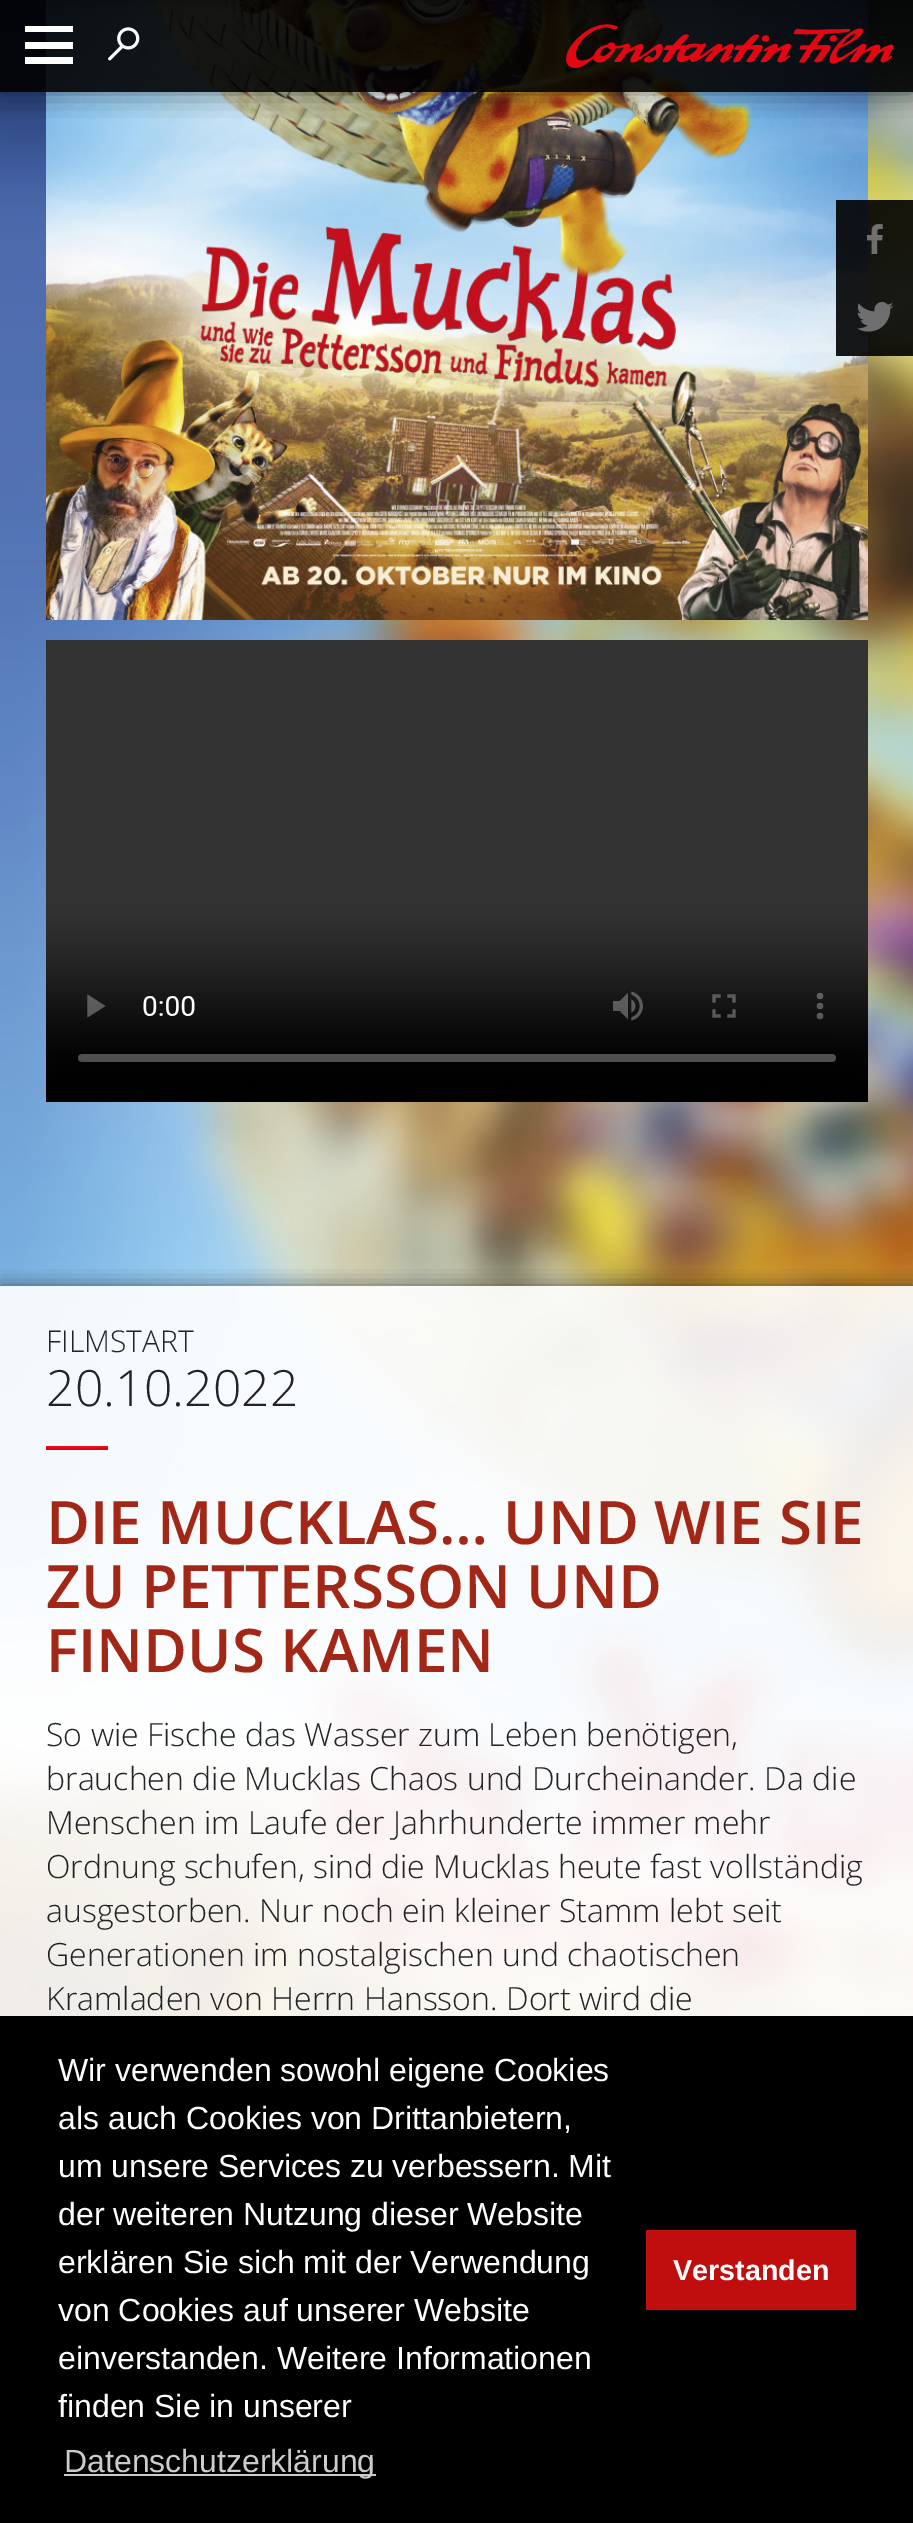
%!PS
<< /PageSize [913 2523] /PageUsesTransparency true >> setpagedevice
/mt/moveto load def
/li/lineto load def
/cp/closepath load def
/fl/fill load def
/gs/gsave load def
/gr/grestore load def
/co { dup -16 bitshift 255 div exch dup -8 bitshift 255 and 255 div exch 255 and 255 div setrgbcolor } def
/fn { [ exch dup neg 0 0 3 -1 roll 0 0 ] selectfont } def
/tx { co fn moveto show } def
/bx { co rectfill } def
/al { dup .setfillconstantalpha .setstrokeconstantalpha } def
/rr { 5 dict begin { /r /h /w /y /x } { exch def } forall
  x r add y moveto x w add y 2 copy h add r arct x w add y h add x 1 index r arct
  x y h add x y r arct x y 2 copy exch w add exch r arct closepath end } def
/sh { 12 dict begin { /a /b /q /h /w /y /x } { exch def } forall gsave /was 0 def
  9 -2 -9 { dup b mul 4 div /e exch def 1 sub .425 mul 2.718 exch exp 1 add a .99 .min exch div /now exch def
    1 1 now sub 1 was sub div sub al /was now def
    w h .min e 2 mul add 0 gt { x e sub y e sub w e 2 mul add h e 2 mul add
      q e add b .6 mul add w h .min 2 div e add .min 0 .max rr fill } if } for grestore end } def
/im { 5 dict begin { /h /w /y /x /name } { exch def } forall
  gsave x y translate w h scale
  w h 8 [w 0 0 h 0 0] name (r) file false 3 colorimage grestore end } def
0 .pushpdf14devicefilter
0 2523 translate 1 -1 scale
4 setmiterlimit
0 0 913 2523 16#FFFFFF bx
(media/1.raw) 0 0 913 2016 im
(media/4.raw) 46 0 822 620 im
16#000000 co
0 -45 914 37 0 15 .5 sh
gs
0 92 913 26 rectclip
0 0 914 92 0 15 .5 sh
gr
0.9 al
0 0 913 92 16#000000 bx
1 al
16#FFFFFF co
25 26 mt 25 32 li 73 32 li 73 26 li cp 25 49 mt 73 49 li 73 42 li 25 42 li cp 25 64 mt 73 64 li 73 57 li 25 57 li cp fl
(media/2.raw) 108 27 32 34 im
(media/3.raw) 566 24 328 44 im
(media/5.raw) 46 640 822 462 im
gs
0 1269 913 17 rectclip
16#000000 co
0 1286 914 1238 0 10 .5 sh
gr
0.9 al
0 1286 913 730 16#FFFFFF bx
836 200 77 156 16#000000 bx
1 al
(media/6.raw) 867 224 16 30 im
(media/7.raw) 857 302 37 30 im
(media/8.raw) 46 1446 62 4 im
0 2016 913 507 16#000000 bx
64 2474 312 2 16#CCCCCC bx
646 2230 210 80 16#C00D0D bx
(FILMSTART) 46 1352 /OpenSans-Light 30 16#222326 tx
(20.10.2022) 46 1406 /OpenSans-Light 50 16#222326 tx
(DIE MUCKLAS… UND WIE SIE) 46 1544 /OpenSans-SemiBold 60 16#A32716 tx
(ZU PETTERSSON UND) 46 1608 /OpenSans-SemiBold 60 16#A32716 tx
(FINDUS KAMEN) 46 1672 /OpenSans-SemiBold 60 16#A32716 tx
(So wie Fische das Wasser zum Leben benötigen,) 46 1746 /OpenSans-Light 32 16#222326 tx
(brauchen die Mucklas Chaos und Durcheinander. Da die) 46 1790 /OpenSans-Light 32 16#222326 tx
(Menschen im Laufe der Jahrhunderte immer mehr) 46 1834 /OpenSans-Light 32 16#222326 tx
(Ordnung schufen, sind die Mucklas heute fast vollständig) 46 1878 /OpenSans-Light 32 16#222326 tx
(ausgestorben. Nur noch ein kleiner Stamm lebt seit) 46 1922 /OpenSans-Light 32 16#222326 tx
(Generationen im nostalgischen und chaotischen) 46 1966 /OpenSans-Light 32 16#222326 tx
(Kramladen von Herrn Hansson. Dort wird die) 46 2010 /OpenSans-Light 32 16#222326 tx
(Wir verwenden sowohl eigene Cookies) 58 2081 /LiberationSans-Regular 32 16#FFFFFF tx
(als auch Cookies von Drittanbietern,) 58 2129 /LiberationSans-Regular 32 16#FFFFFF tx
(um unsere Services zu verbessern. Mit) 58 2177 /LiberationSans-Regular 32 16#FFFFFF tx
(der weiteren Nutzung dieser Website) 58 2225 /LiberationSans-Regular 32 16#FFFFFF tx
(erklären Sie sich mit der Verwendung) 58 2273 /LiberationSans-Regular 32 16#FFFFFF tx
(von Cookies auf unserer Website) 58 2321 /LiberationSans-Regular 32 16#FFFFFF tx
(einverstanden. Weitere Informationen) 58 2369 /LiberationSans-Regular 32 16#FFFFFF tx
(finden Sie in unserer) 58 2417 /LiberationSans-Regular 32 16#FFFFFF tx
(Datenschutzerklärung) 64 2472 /LiberationSans-Regular 32 16#CCCCCC tx
(Verstanden) 673 2280 /LiberationSans-Bold 28.75 16#FFFFFF tx
.poppdf14devicefilter showpage
